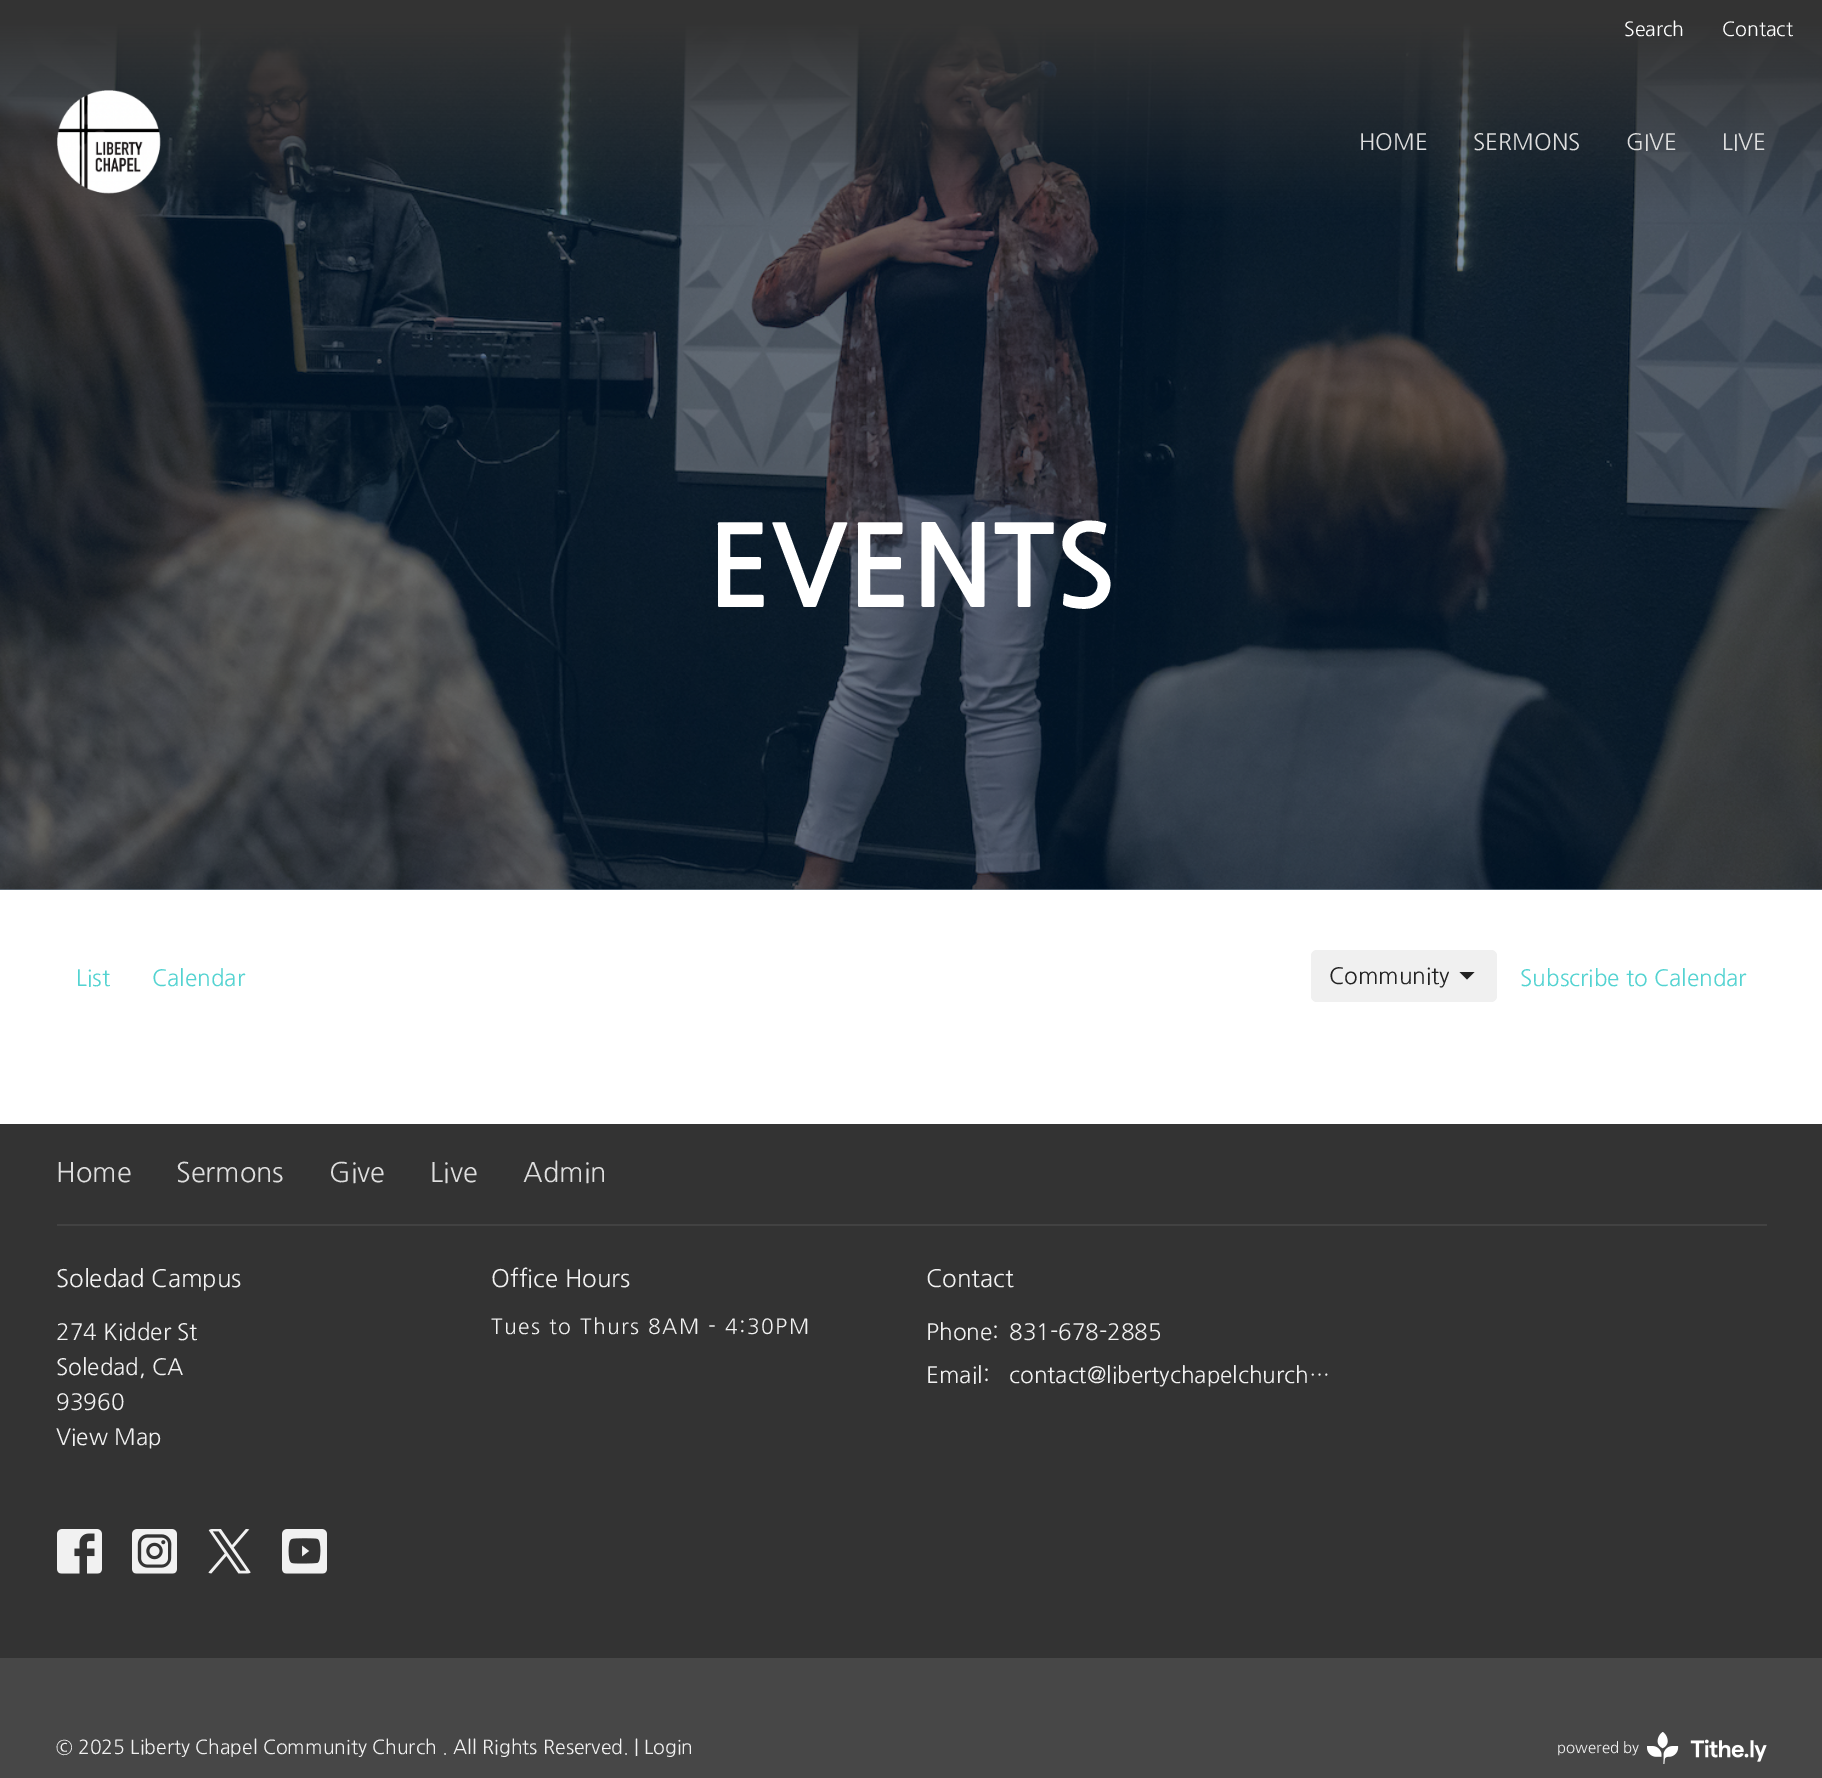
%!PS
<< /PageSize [1822 1778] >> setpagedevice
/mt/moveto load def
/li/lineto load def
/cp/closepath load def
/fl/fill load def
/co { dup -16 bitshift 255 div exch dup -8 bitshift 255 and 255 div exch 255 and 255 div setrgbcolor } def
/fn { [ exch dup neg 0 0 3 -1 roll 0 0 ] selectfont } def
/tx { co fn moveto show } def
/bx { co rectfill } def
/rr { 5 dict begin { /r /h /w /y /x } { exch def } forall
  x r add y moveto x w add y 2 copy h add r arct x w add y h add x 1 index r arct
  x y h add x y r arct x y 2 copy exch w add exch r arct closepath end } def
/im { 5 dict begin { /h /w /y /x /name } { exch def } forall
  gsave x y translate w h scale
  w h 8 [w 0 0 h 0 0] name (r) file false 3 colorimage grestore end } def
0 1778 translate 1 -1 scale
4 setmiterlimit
0 0 1822 1778 16#FFFFFF bx
0 889 1822 1 16#8092A3 bx
(media/2.raw) 0 0 1822 890 im
(media/1.raw) 57 90 104 104 im
16#F0F0F0 co
1311 950 186 52 6 rr fl
16#222222 co
1459.5 972 mt 1467 979.5 li 1474.5 972 li cp fl
0 1124 1822 534 16#333333 bx
57 1224 1710 2 16#424242 bx
(media/3.raw) 57 1529 45 45 im
(media/4.raw) 132 1529 45 45 im
(media/5.raw) 208 1529 43 45 im
(media/6.raw) 282 1529 45 45 im
0 1658 1822 120 16#474747 bx
(media/7.raw) 1647 1732 120 32 im
(Search) 1624 36 /NanumGothic-Regular 19.5 16#FFFFFF tx
(Contact) 1722 36 /NanumGothic-Regular 19.5 16#FFFFFF tx
(HOME) 1359 150 /NanumGothic-Regular 22.5 16#DEDEDE tx
(SERMONS) 1473 150 /NanumGothic-Regular 22.5 16#DEDEDE tx
(GIVE) 1626 150 /NanumGothic-Regular 22.5 16#DEDEDE tx
(LIVE) 1722 150 /NanumGothic-Regular 22.5 16#DEDEDE tx
(EVENTS) 707 607 /NanumGothic-Bold 112.5 16#FFFFFF tx
(List) 76 986 /NanumGothic-Regular 22.5 16#53D3D1 tx
(Calendar) 152 986 /NanumGothic-Regular 22.5 16#53D3D1 tx
(Community) 1329 984 /NanumGothic-Regular 22.5 16#222222 tx
(Subscribe to Calendar) 1520 986 /NanumGothic-Regular 22.5 16#53D3D1 tx
(Home) 56 1182 /NanumGothic-Regular 27 16#DEDEDE tx
(Sermons) 176 1182 /NanumGothic-Regular 27 16#DEDEDE tx
(Give) 329 1182 /NanumGothic-Regular 27 16#DEDEDE tx
(Live) 430 1182 /NanumGothic-Regular 27 16#DEDEDE tx
(Admin) 523 1182 /NanumGothic-Regular 27 16#DEDEDE tx
(Soledad Campus) 56 1287 /NanumGothic-Regular 24 16#F1F1F1 tx
(274 Kidder St) 56 1340 /NanumGothic-Regular 22.5 16#F1F1F1 tx
(Soledad, CA) 56 1375 /NanumGothic-Regular 22.5 16#F1F1F1 tx
(93960) 56 1410 /NanumGothic-Regular 22.5 16#F1F1F1 tx
(View Map) 56 1445 /NanumGothic-Regular 22.5 16#F1F1F1 tx
(Office Hours) 491 1287 /NanumGothic-Regular 24 16#F1F1F1 tx
/NanumGothic-Regular 21 fn
491 1334 mt 1.5 0 (Tues to Thurs 8AM - 4:30PM) ashow
(Contact) 926 1287 /NanumGothic-Regular 24 16#F1F1F1 tx
(Phone:) 926 1340 /NanumGothic-Regular 22.5 16#F1F1F1 tx
(831-678-2885) 1009 1340 /NanumGothic-Regular 22.5 16#F1F1F1 tx
(Email:) 926 1383 /NanumGothic-Regular 22.5 16#F1F1F1 tx
(contact@libertychapelchurch…) 1009 1383 /NanumGothic-Regular 22.5 16#F1F1F1 tx
(© 2025 Liberty Chapel Community Church . All Rights Reserved. |) 56 1754 /NanumGothic-Regular 19.35 16#F1F1F1 tx
(Login) 644 1754 /NanumGothic-Regular 19.35 16#F1F1F1 tx
(powered by) 1557 1753 /NanumGothic-Regular 15 16#F1F1F1 tx
showpage
